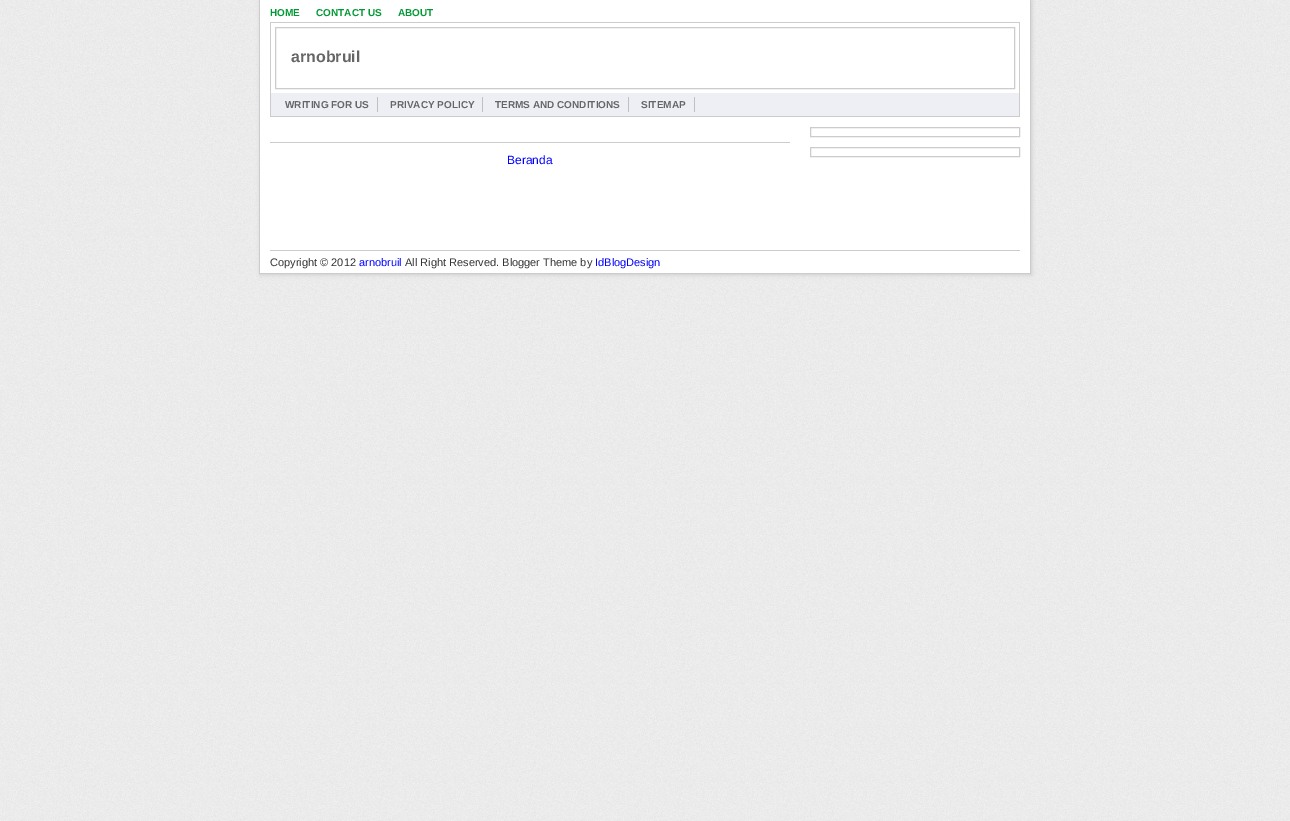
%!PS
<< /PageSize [1290 821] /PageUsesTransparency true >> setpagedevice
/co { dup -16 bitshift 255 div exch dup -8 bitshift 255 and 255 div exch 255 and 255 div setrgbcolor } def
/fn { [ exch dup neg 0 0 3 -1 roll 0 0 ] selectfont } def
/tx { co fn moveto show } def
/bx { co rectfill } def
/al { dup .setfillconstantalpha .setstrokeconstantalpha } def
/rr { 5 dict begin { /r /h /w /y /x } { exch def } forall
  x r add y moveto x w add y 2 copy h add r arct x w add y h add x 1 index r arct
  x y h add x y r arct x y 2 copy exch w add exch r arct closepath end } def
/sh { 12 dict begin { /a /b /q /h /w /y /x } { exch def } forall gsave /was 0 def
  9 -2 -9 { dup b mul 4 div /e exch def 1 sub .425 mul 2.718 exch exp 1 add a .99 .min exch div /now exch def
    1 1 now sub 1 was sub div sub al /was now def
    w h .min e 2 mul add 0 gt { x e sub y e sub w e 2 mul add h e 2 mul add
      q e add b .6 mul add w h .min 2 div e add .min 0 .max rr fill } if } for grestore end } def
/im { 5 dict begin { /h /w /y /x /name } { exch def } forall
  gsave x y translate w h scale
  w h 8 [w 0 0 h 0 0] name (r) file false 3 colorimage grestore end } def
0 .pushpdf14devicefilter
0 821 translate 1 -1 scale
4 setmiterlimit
0 0 1290 821 16#FFFFFF bx
(media/1.raw) 0 0 1290 821 im
16#CCCCCC co
260 1 772 274 0 2 1 sh
260 0 770 273 16#FFFFFF bx
1030 0 1 274 16#CCCCCC bx
259 273 772 1 16#CCCCCC bx
259 0 1 274 16#CCCCCC bx
270 22 750 1 16#CCCCCC bx
1019 22 1 95 16#CCCCCC bx
270 22 1 71 16#CCCCCC bx
275.5 27.5 739 61 rectstroke
271 93 748 23 16#EDEFF4 bx
270 116 750 1 16#CCCCCC bx
270 93 1 24 16#CCCCCC bx
377 97 1 15 16#C0C0C0 bx
482 97 1 15 16#C0C0C0 bx
628 97 1 15 16#C0C0C0 bx
694 97 1 15 16#C0C0C0 bx
16#CCCCCC co
810.5 127.5 209 9 rectstroke
810.5 147.5 209 9 rectstroke
270 142 520 1 16#CCCCCC bx
270 250 750 1 16#CCCCCC bx
(HOME) 270 16 /LiberationSans-Bold 10 16#009933 tx
(CONTACT US) 316 16 /LiberationSans-Bold 10 16#009933 tx
(ABOUT) 398 16 /LiberationSans-Bold 10 16#009933 tx
(arnobruil) 291 62 /LiberationSans-Bold 16 16#666666 tx
(WRITING FOR US) 285 108 /LiberationSans-Bold 10 16#666666 tx
(PRIVACY POLICY) 390 108 /LiberationSans-Bold 10 16#666666 tx
(TERMS AND CONDITIONS) 495 108 /LiberationSans-Bold 10 16#666666 tx
(SITEMAP) 641 108 /LiberationSans-Bold 10 16#666666 tx
(Beranda) 507 164 /LiberationSans-Regular 12 16#0000FF tx
(Copyright © 2012) 270 266 /LiberationSans-Regular 11 16#333333 tx
(arnobruil) 359 266 /LiberationSans-Regular 11 16#0000FF tx
(All Right Reserved. Blogger Theme by) 405 266 /LiberationSans-Regular 11 16#333333 tx
(IdBlogDesign) 595 266 /LiberationSans-Regular 11 16#0000FF tx
.poppdf14devicefilter showpage
